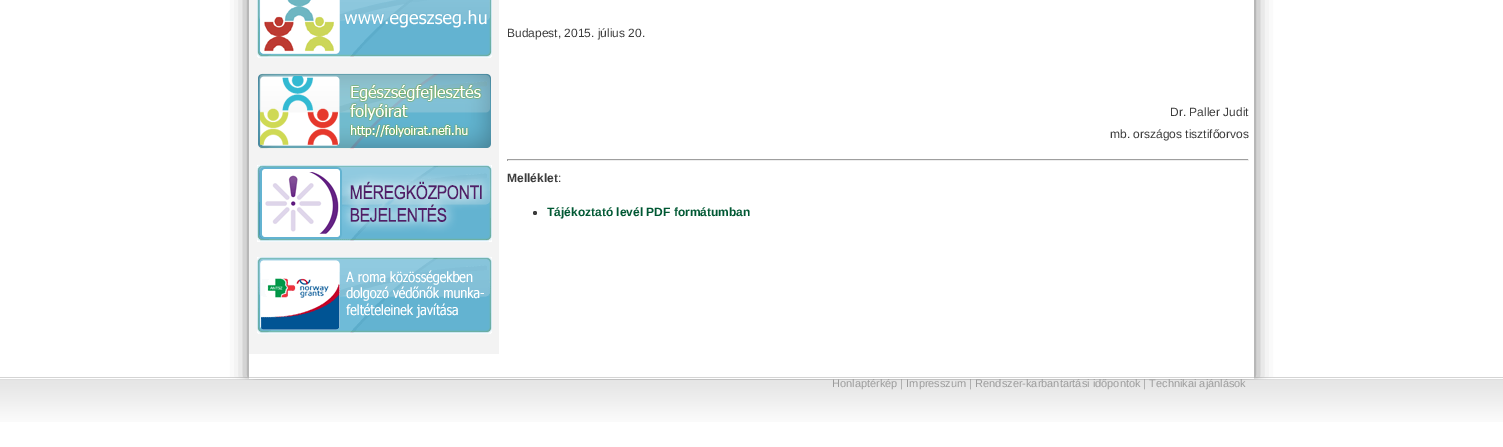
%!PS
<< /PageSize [1503 447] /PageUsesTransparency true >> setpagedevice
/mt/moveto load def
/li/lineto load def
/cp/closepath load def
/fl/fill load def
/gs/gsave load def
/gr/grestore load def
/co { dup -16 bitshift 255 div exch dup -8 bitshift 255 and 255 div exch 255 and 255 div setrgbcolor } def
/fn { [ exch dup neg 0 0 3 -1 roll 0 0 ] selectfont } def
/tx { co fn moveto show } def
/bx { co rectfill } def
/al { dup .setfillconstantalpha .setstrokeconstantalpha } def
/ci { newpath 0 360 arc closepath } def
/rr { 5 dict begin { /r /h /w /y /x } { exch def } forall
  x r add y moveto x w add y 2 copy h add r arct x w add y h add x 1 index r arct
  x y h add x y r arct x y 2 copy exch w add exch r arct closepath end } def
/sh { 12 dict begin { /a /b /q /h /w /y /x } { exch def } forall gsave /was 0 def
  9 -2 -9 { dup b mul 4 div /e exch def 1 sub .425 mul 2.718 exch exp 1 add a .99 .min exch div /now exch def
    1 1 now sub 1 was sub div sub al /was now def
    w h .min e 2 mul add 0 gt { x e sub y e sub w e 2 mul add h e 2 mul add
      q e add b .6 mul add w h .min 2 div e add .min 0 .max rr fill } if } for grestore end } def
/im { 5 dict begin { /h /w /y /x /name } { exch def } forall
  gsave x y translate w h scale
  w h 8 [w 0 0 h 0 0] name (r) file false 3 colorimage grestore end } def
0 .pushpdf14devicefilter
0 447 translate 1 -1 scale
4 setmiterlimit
0 0 1503 447 16#FFFFFF bx
gs
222 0 mt 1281 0 li 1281 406 li 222 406 li cp 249 -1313 mt 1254 -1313 li 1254 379 li 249 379 li cp eoclip newpath
16#000000 co
249 -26 1005 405 0 8.5 .57 sh
gr
249 0 250 354 16#F3F3F3 bx
(media/1.raw) 257 0 235 58 im
(media/2.raw) 258 73 233 76 im
(media/3.raw) 257 165 235 77 im
(media/4.raw) 257 257 235 77 im
507 159 742 1 16#9F9F9F bx
1248 159 1 2 16#EEEEEE bx
507 160 742 1 16#EEEEEE bx
507 159 1 2 16#9F9F9F bx
16#3C3C3C co
535 213 2 ci fl
(media/5.raw) 0 377 1503 45 im
(Budapest, 2015. július 20.) 507 37 /LiberationSans-Regular 12 16#3C3C3C tx
(Dr. Paller Judit) 1170 116 /LiberationSans-Regular 12 16#3C3C3C tx
(mb. országos tisztifőorvos) 1110 138 /LiberationSans-Regular 12 16#3C3C3C tx
(Melléklet) 507 182 /LiberationSans-Bold 12 16#3C3C3C tx
(:) 558 182 /LiberationSans-Regular 12 16#3C3C3C tx
(Tájékoztató levél PDF formátumban) 547 216 /LiberationSans-Bold 12 16#005833 tx
(Honlaptérkép | Impresszum | Rendszer-karbantartási időpontok | Technikai ajánlások) 832 387 /LiberationSans-Regular 11 16#9C9C9C tx
.poppdf14devicefilter showpage
